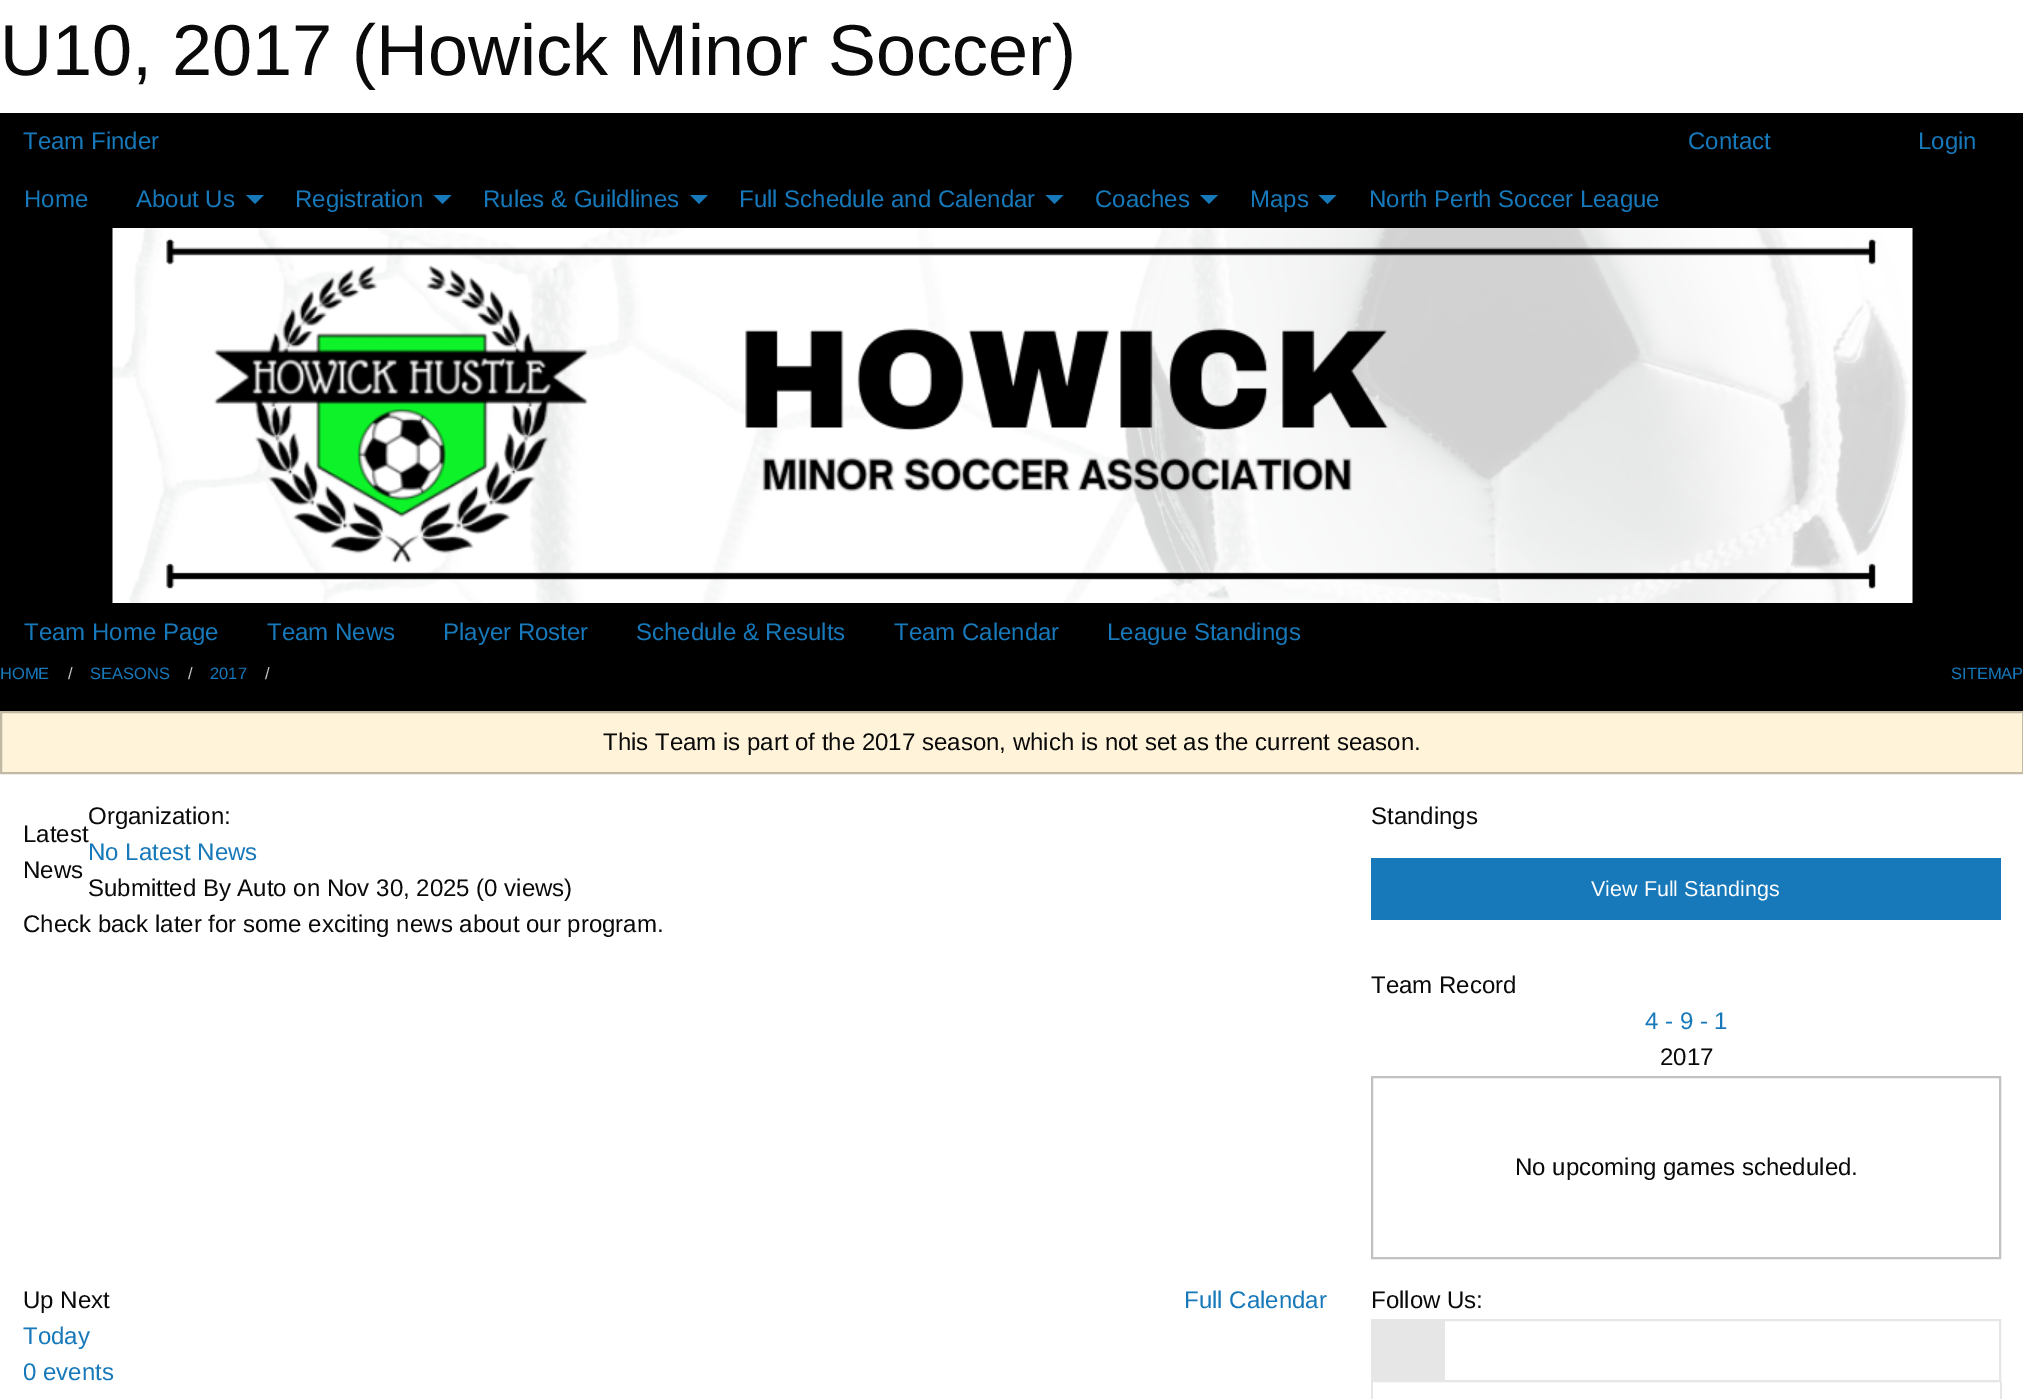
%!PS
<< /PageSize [2023 1399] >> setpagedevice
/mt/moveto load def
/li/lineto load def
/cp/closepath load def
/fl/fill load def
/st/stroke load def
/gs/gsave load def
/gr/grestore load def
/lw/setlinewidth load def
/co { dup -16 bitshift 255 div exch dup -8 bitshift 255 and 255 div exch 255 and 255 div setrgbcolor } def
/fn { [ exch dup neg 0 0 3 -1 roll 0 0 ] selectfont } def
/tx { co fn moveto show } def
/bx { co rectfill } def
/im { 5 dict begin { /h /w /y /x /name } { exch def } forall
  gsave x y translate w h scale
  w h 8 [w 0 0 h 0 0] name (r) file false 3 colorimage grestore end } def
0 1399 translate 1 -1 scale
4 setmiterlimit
0 0 2023 1399 16#FFFFFF bx
0 113 2023 598 16#000000 bx
16#1779BA co
246 195 mt 264 195 li 255 204 li cp fl
433.5 195 mt 451.5 195 li 442.5 204 li cp fl
690 195 mt 708 195 li 699 204 li cp fl
1045.5 195 mt 1063.5 195 li 1054.5 204 li cp fl
1200 195 mt 1218 195 li 1209 204 li cp fl
1318.5 195 mt 1336.5 195 li 1327.5 204 li cp fl
(media/1.raw) 112 228 1801 375 im
16#FFF3D9 co
1 712 mt 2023 712 li 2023 773 li 1 773 li cp gs fl gr
16#C2B9A5 co
2 lw
st
1371 858 630 62 16#1779BA bx
16#C2C2C2 co
1372 1077 628 181 rectstroke
16#E6E6E6 co
1372 1320 628 61 rectstroke
1373 1321 72 59 16#E6E6E6 bx
2000 1382 2 17 16#E6E6E6 bx
1371 1382 2 17 16#E6E6E6 bx
(U10, 2017 \(Howick Minor Soccer\)) 0 75 /LiberationSans-Regular 72 16#0A0A0A tx
(Team Finder) 23 149 /LiberationSans-Regular 24 16#1779BA tx
(Contact) 1688 149 /LiberationSans-Regular 24 16#1779BA tx
(Login) 1918 149 /LiberationSans-Regular 24 16#1779BA tx
(Home) 24 207 /LiberationSans-Regular 24 16#1779BA tx
(About Us) 136 207 /LiberationSans-Regular 24 16#1779BA tx
(Registration) 295 207 /LiberationSans-Regular 24 16#1779BA tx
(Rules & Guildlines) 483 207 /LiberationSans-Regular 24 16#1779BA tx
(Full Schedule and Calendar) 739 207 /LiberationSans-Regular 24 16#1779BA tx
(Coaches) 1095 207 /LiberationSans-Regular 24 16#1779BA tx
(Maps) 1250 207 /LiberationSans-Regular 24 16#1779BA tx
(North Perth Soccer League) 1369 207 /LiberationSans-Regular 24 16#1779BA tx
(Team Home Page) 24 640 /LiberationSans-Regular 24 16#1779BA tx
(Team News) 267 640 /LiberationSans-Regular 24 16#1779BA tx
(Player Roster) 443 640 /LiberationSans-Regular 24 16#1779BA tx
(Schedule & Results) 636 640 /LiberationSans-Regular 24 16#1779BA tx
(Team Calendar) 894 640 /LiberationSans-Regular 24 16#1779BA tx
(League Standings) 1107 640 /LiberationSans-Regular 24 16#1779BA tx
(HOME) 0 679 /LiberationSans-Regular 16.5 16#1779BA tx
(/) 68 679 /LiberationSans-Regular 16.5 16#CACACA tx
(SEASONS) 90 679 /LiberationSans-Regular 16.5 16#1779BA tx
(/) 188 679 /LiberationSans-Regular 16.5 16#CACACA tx
(2017) 210 679 /LiberationSans-Regular 16.5 16#1779BA tx
(/) 265 679 /LiberationSans-Regular 16.5 16#CACACA tx
(SITEMAP) 1951 679 /LiberationSans-Regular 16.5 16#1779BA tx
(This Team is part of the 2017 season, which is not set as the current season.) 603 750 /LiberationSans-Regular 24 16#0A0A0A tx
(Latest) 23 842 /LiberationSans-Regular 24 16#0A0A0A tx
(News) 23 878 /LiberationSans-Regular 24 16#0A0A0A tx
(Organization:) 88 824 /LiberationSans-Regular 24 16#0A0A0A tx
(No Latest News) 88 860 /LiberationSans-Regular 24 16#1779BA tx
(Submitted By Auto on Nov 30, 2025 \(0 views\)) 88 896 /LiberationSans-Regular 24 16#0A0A0A tx
(Check back later for some exciting news about our program.) 23 932 /LiberationSans-Regular 24 16#0A0A0A tx
(Standings) 1371 824 /LiberationSans-Regular 24 16#0A0A0A tx
(View Full Standings) 1591 896 /LiberationSans-Regular 21.5 16#FEFEFE tx
(Team Record) 1371 993 /LiberationSans-Regular 24 16#0A0A0A tx
(4 - 9 - 1) 1645 1029 /LiberationSans-Regular 24 16#1779BA tx
(2017) 1660 1065 /LiberationSans-Regular 24 16#0A0A0A tx
(No upcoming games scheduled.) 1515 1175 /LiberationSans-Regular 24 16#0A0A0A tx
(Up Next) 23 1308 /LiberationSans-Regular 24 16#0A0A0A tx
(Full Calendar) 1184 1308 /LiberationSans-Regular 24 16#1779BA tx
(Today) 23 1344 /LiberationSans-Regular 24 16#1779BA tx
(0 events) 23 1380 /LiberationSans-Regular 24 16#1779BA tx
(Follow Us:) 1371 1308 /LiberationSans-Regular 24 16#0A0A0A tx
showpage
